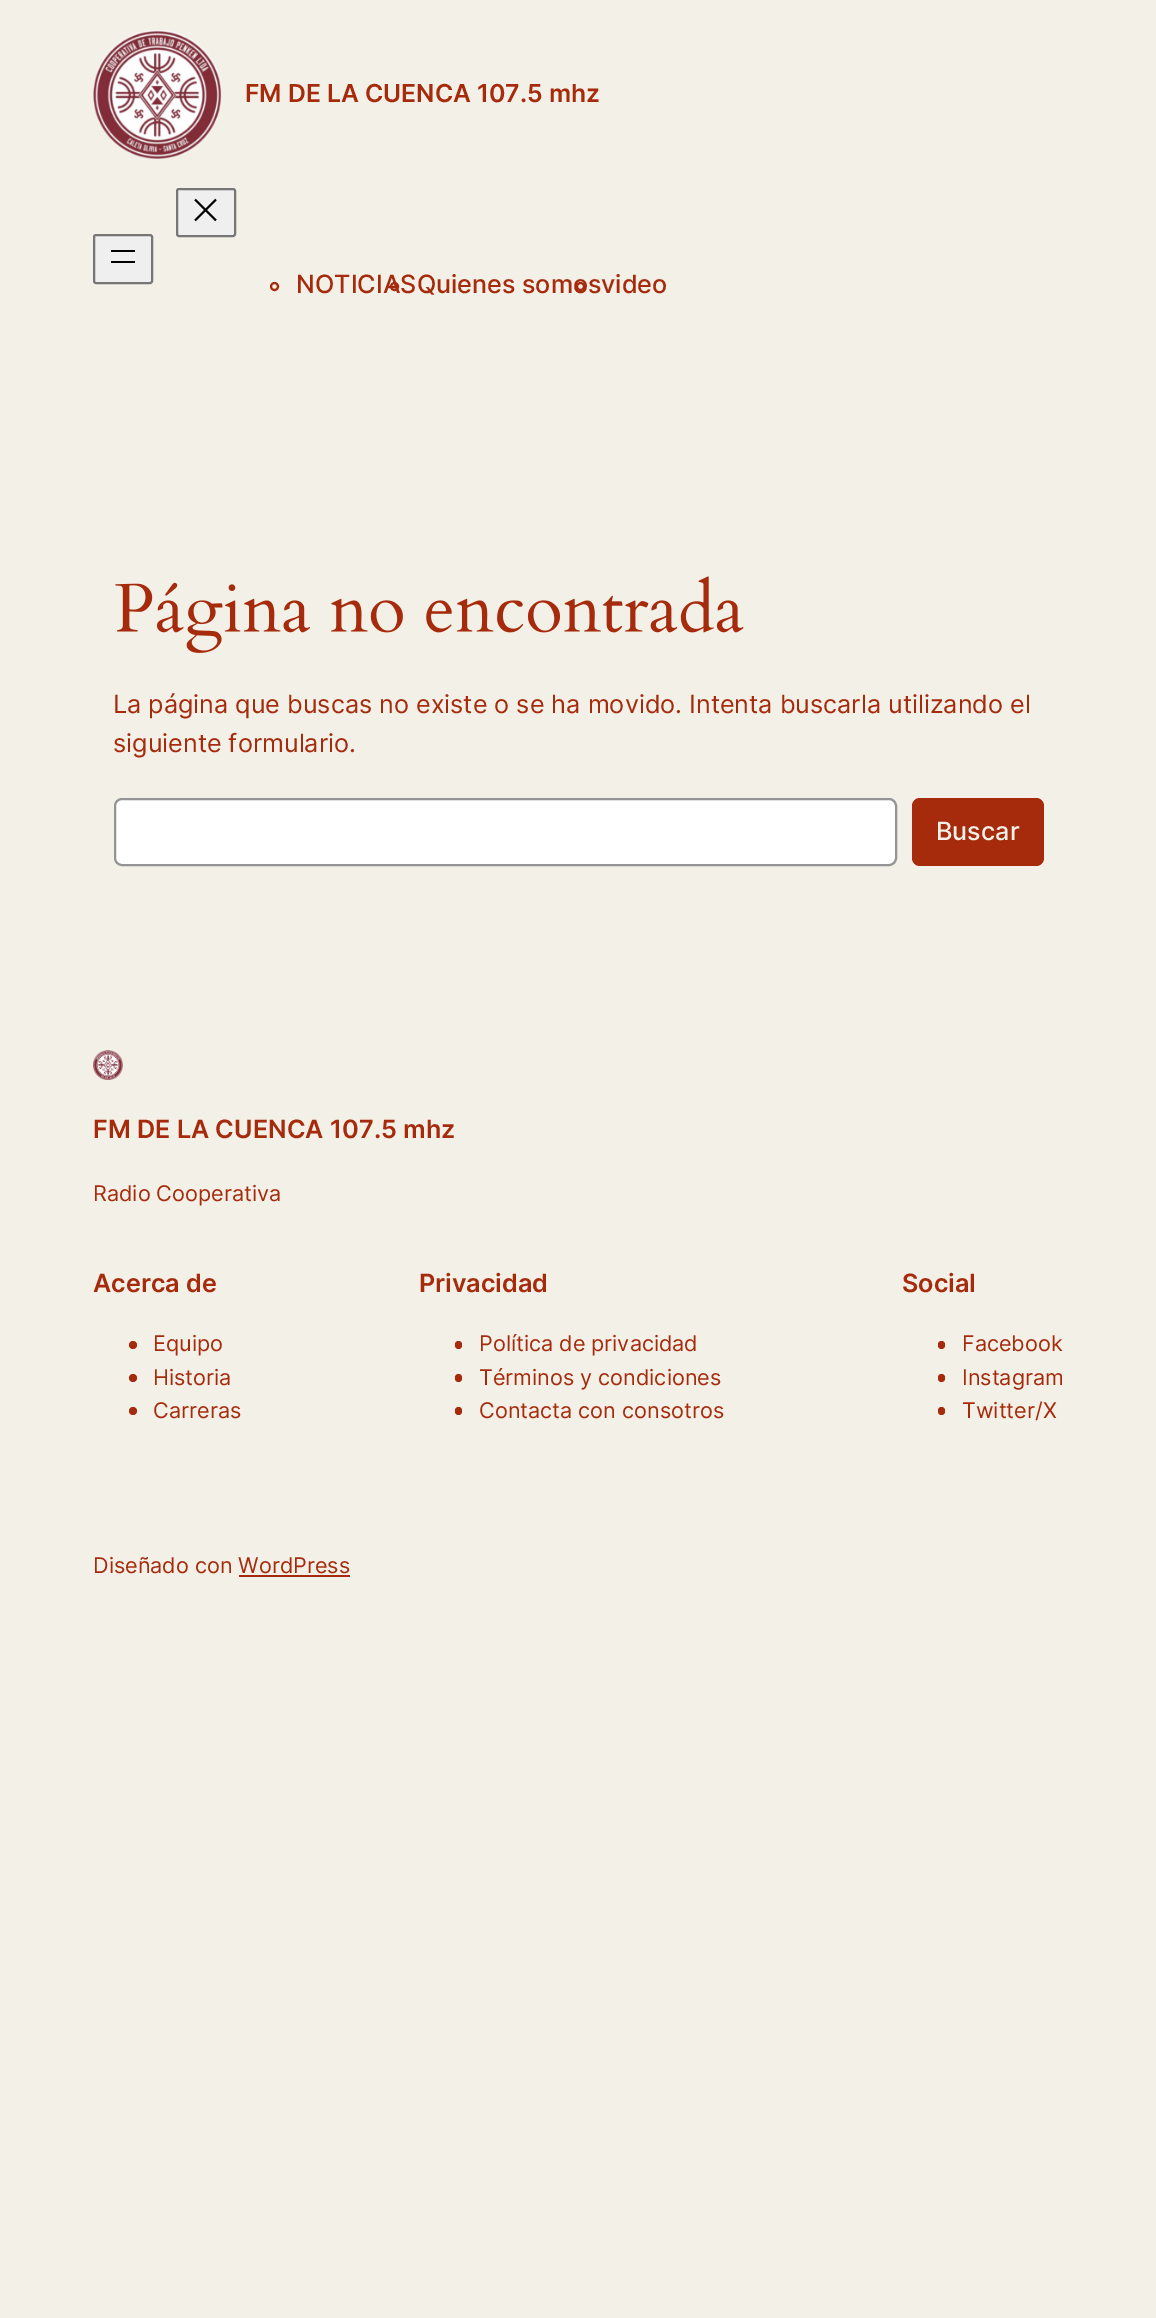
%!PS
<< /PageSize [1156 2318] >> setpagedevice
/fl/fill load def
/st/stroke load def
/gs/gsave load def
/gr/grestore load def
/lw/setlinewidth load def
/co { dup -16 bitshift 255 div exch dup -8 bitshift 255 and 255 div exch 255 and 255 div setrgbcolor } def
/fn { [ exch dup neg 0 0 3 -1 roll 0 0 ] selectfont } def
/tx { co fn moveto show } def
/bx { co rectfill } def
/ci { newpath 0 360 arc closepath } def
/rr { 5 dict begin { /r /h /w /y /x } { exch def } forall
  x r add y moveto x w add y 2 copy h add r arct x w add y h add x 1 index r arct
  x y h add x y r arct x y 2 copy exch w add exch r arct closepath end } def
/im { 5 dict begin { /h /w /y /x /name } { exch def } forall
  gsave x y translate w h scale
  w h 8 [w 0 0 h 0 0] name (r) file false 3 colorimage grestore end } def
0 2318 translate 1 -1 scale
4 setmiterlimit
0 0 1156 2318 16#F3F0E7 bx
(media/1.raw) 93 30 129 129 im
16#EFEFEF co
94 235 58 48 2 rr gs fl gr
16#767676 co
2 lw
st
111 250 24 2 16#000000 bx
111 261 24 2 16#000000 bx
16#EFEFEF co
177 189 58 47 2 rr gs fl gr
16#767676 co
st
(media/2.raw) 194 198 23 24 im
16#A62B0C co
274.5 286.5 3.5 ci st
580.5 286.5 3.5 ci st
394.5 286.5 3.5 ci st
(media/3.raw) 115 576 629 77 im
16#FFFFFF co
115 799 781 66 7 rr gs fl gr
16#949494 co
st
16#A62B0C co
912 798 132 68 8 rr fl
(media/4.raw) 93 1050 30 30 im
133 1345 4 ci fl
133 1378 4 ci fl
133 1411 4 ci fl
455 1341 7 8 3.5 rr fl
455 1374 7 8 3.5 rr fl
455 1407 7 8 3.5 rr fl
938 1341 7 8 3.5 rr fl
938 1374 7 8 3.5 rr fl
938 1407 7 8 3.5 rr fl
239 1575 111 2 16#A62B0C bx
(FM DE LA CUENCA 107.5 mhz) 245 102 /Inter-SemiBold 24.7 16#A62B0C tx
(NOTICIASQuienes somos) 296 293 /Inter-Medium 25.2 16#A62B0C tx
(video) 601 293 /Inter-Medium 25.2 16#A62B0C tx
(La página que buscas no existe o se ha movido. Intenta buscarla utilizando el) 113 713 /Inter-Regular 25.2 16#A62B0C tx
(siguiente formulario.) 113 752 /Inter-Regular 25.2 16#A62B0C tx
(Buscar) 936 840 /Inter-Medium 25.2 16#F3F0E7 tx
(FM DE LA CUENCA 107.5 mhz) 93 1138 /Inter-SemiBold 25.2 16#A62B0C tx
(Radio Cooperativa) 93 1201 /Inter-Regular 21.6 16#A62B0C tx
(Acerca de) 93 1292 /Inter-SemiBold 25.2 16#A62B0C tx
(Equipo) 153 1351 /Inter-Regular 21.6 16#A62B0C tx
(Historia) 153 1385 /Inter-Regular 21.6 16#A62B0C tx
(Carreras) 153 1418 /Inter-Regular 21.6 16#A62B0C tx
(Privacidad) 419 1292 /Inter-SemiBold 25.2 16#A62B0C tx
(Política de privacidad) 479 1351 /Inter-Regular 21.6 16#A62B0C tx
(Términos y condiciones) 479 1385 /Inter-Regular 21.6 16#A62B0C tx
(Contacta con consotros) 479 1418 /Inter-Regular 21.6 16#A62B0C tx
(Social) 902 1292 /Inter-SemiBold 25.2 16#A62B0C tx
(Facebook) 962 1351 /Inter-Regular 21.6 16#A62B0C tx
(Instagram) 962 1385 /Inter-Regular 21.6 16#A62B0C tx
(Twitter/X) 962 1418 /Inter-Regular 21.6 16#A62B0C tx
(Diseñado con WordPress) 93 1573 /Inter-Regular 21.6 16#A62B0C tx
showpage
